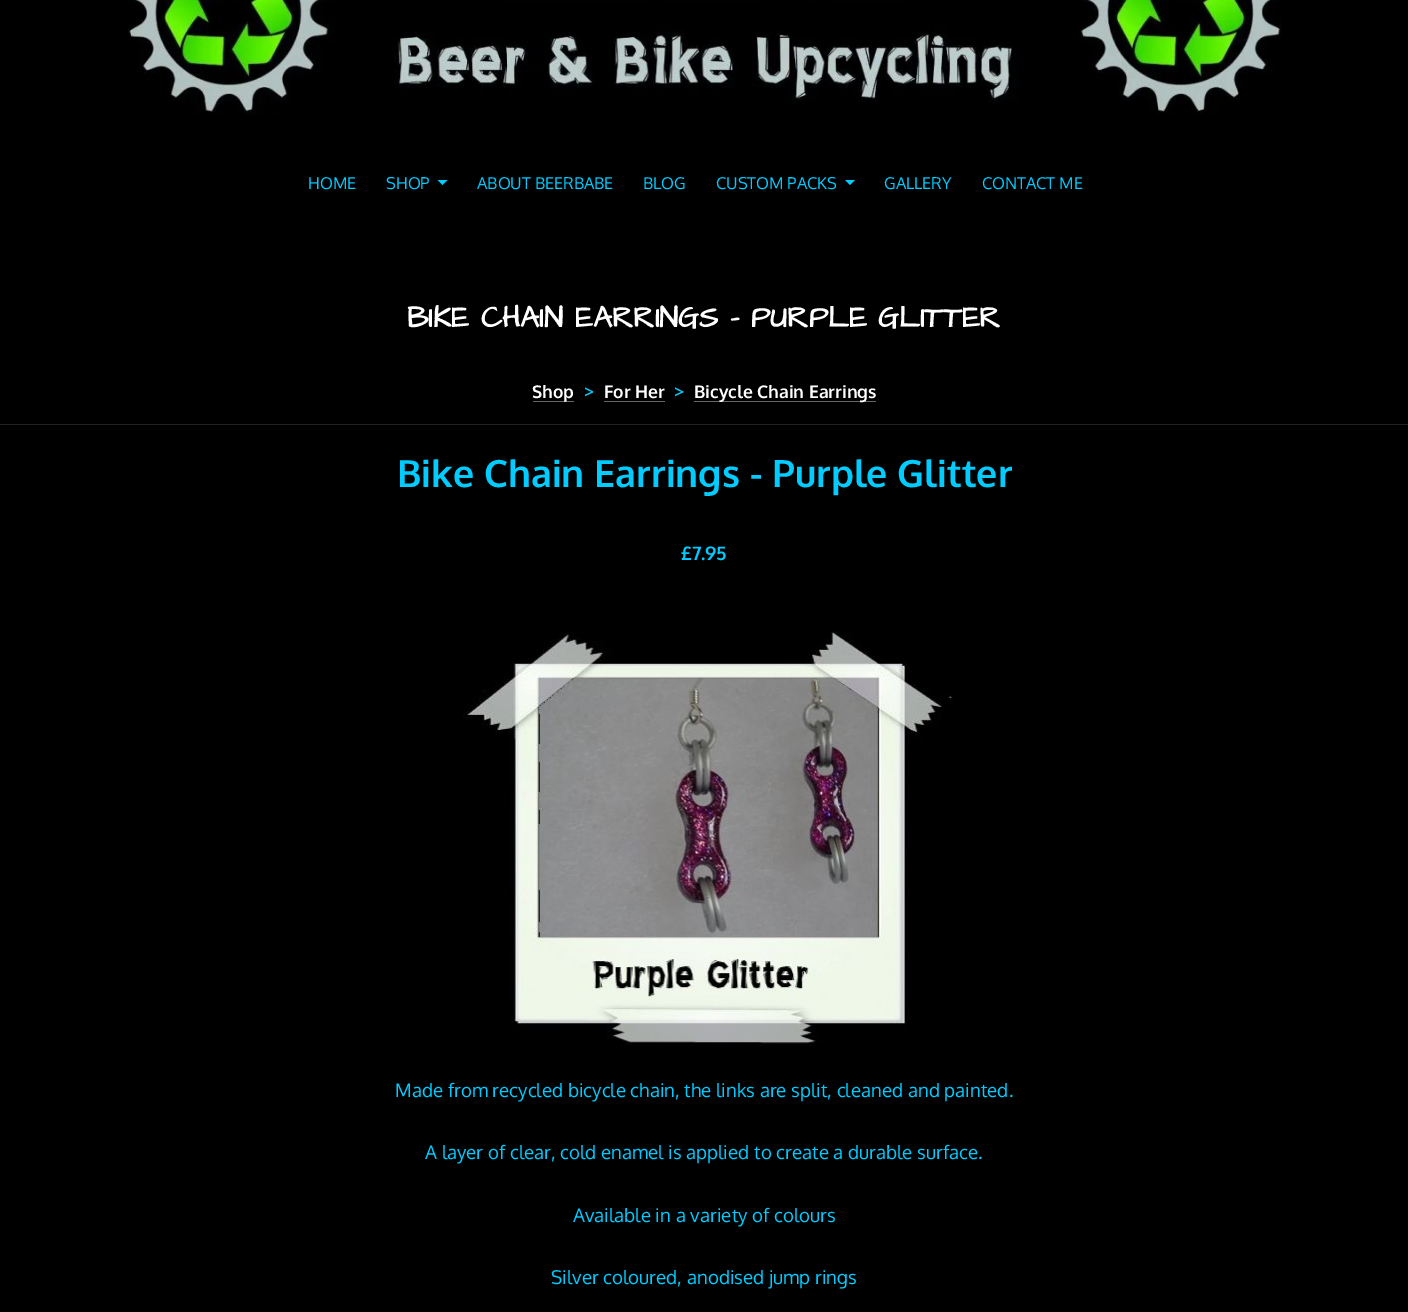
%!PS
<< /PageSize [1408 1312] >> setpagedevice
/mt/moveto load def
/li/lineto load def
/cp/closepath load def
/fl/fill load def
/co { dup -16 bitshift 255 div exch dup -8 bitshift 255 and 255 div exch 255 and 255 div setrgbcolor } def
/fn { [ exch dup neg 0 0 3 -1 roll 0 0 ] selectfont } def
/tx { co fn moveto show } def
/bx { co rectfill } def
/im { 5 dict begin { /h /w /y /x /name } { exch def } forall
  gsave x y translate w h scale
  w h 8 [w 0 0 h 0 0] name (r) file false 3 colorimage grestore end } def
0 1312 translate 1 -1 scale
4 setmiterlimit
0 0 1408 1312 16#000000 bx
(media/1.raw) 128 0 1154 115 im
16#00CCFF co
437.5 180 mt 447.5 180 li 442.5 185 li cp fl
845 180 mt 855 180 li 850 185 li cp fl
533 401 41 1 16#666666 bx
604 401 61 1 16#666666 bx
694 401 182 1 16#666666 bx
0 424 1408 1 16#222222 bx
(media/2.raw) 463 631 491 415 im
(HOME) 308 189 /Oxygen-Regular 16.25 16#00CCFF tx
(SHOP) 386 189 /Oxygen-Regular 16.25 16#00CCFF tx
(ABOUT BEERBABE) 477 189 /Oxygen-Regular 16.25 16#00CCFF tx
(BLOG) 643 189 /Oxygen-Regular 16.25 16#00CCFF tx
(CUSTOM PACKS) 716 189 /Oxygen-Regular 16.25 16#00CCFF tx
(GALLERY) 884 189 /Oxygen-Regular 16.25 16#00CCFF tx
(CONTACT ME) 982 189 /Oxygen-Regular 16.25 16#00CCFF tx
(BIKE CHAIN EARRINGS - PURPLE GLITTER) 407 327 /ArchitectsDaughter-Bold 30 16#FFFFFF tx
(Shop) 532 398 /Oxygen-Bold 17.5 16#FFFFFF tx
(>) 584 398 /Oxygen-Bold 17.5 16#00CCFF tx
(For Her) 604 398 /Oxygen-Bold 17.5 16#FFFFFF tx
(>) 674 398 /Oxygen-Bold 17.5 16#00CCFF tx
(Bicycle Chain Earrings) 694 398 /Oxygen-Bold 17.5 16#FFFFFF tx
(Bike Chain Earrings - Purple Glitter) 397 487 /Oxygen-Bold 37.5 16#00CCFF tx
(£7.95) 681 560 /Oxygen-Bold 18.75 16#00CCFF tx
(Made from recycled bicycle chain, the links are split, cleaned and painted.) 395 1097 /Oxygen-Regular 18.75 16#00CCFF tx
(A layer of clear, cold enamel is applied to create a durable surface.) 425 1159 /Oxygen-Regular 18.75 16#00CCFF tx
(Available in a variety of colours) 573 1222 /Oxygen-Regular 18.75 16#00CCFF tx
(Silver coloured, anodised jump rings) 551 1284 /Oxygen-Regular 18.75 16#00CCFF tx
showpage
